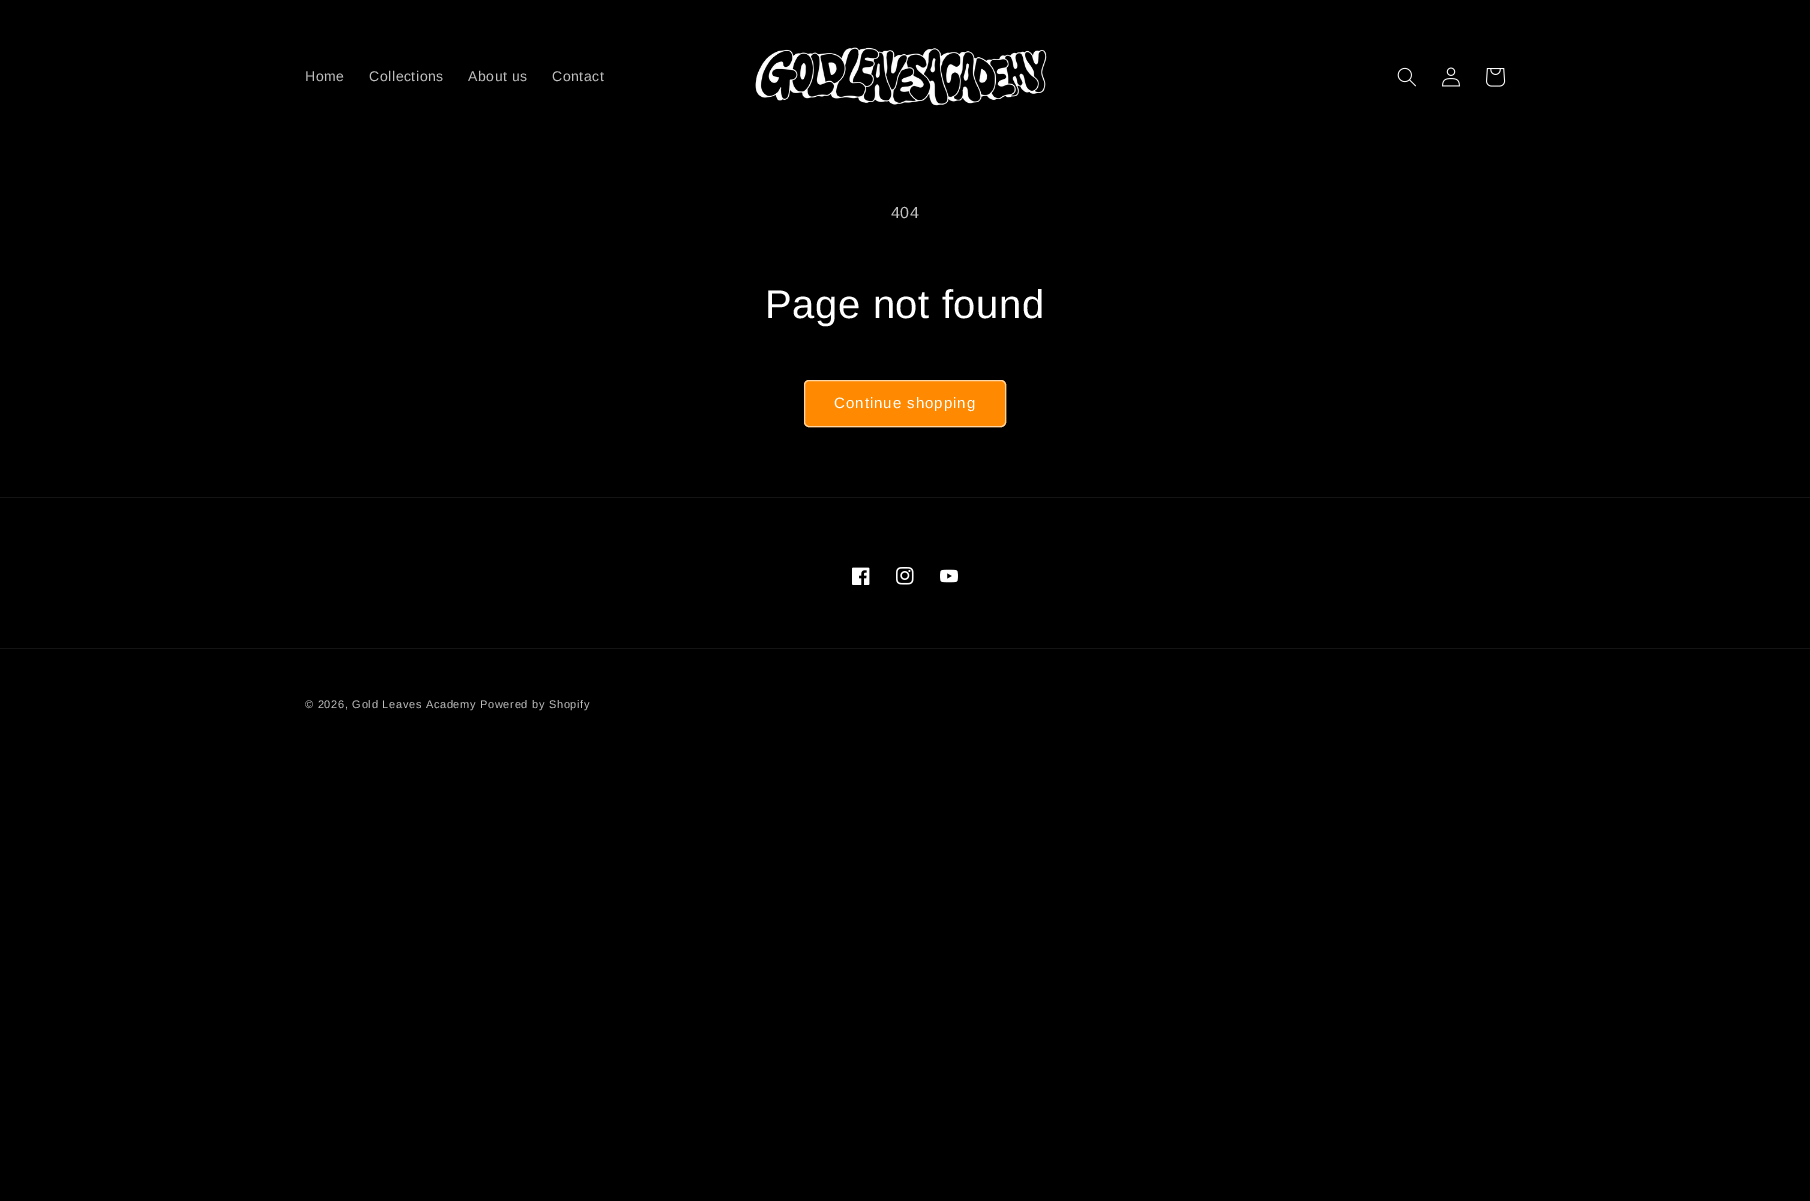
%!PS
<< /PageSize [1810 1201] /PageUsesTransparency true >> setpagedevice
/mt/moveto load def
/fl/fill load def
/st/stroke load def
/co { dup -16 bitshift 255 div exch dup -8 bitshift 255 and 255 div exch 255 and 255 div setrgbcolor } def
/fn { [ exch dup neg 0 0 3 -1 roll 0 0 ] selectfont } def
/bx { co rectfill } def
/al { dup .setfillconstantalpha .setstrokeconstantalpha } def
/rr { 5 dict begin { /r /h /w /y /x } { exch def } forall
  x r add y moveto x w add y 2 copy h add r arct x w add y h add x 1 index r arct
  x y h add x y r arct x y 2 copy exch w add exch r arct closepath end } def
/im { 5 dict begin { /h /w /y /x /name } { exch def } forall
  gsave x y translate w h scale
  w h 8 [w 0 0 h 0 0] name (r) file false 3 colorimage grestore end } def
0 .pushpdf14devicefilter
0 1201 translate 1 -1 scale
4 setmiterlimit
0 0 1810 1201 16#000000 bx
(media/1.raw) 755 47 292 59 im
(media/2.raw) 1397 67 19 20 im
(media/3.raw) 1442 67 18 20 im
(media/4.raw) 1486 68 20 19 im
16#FF8900 co
804 380 202 47 5 rr fl
804.5 380.5 201 46 4.5 rr st
0.65 al
16#FFFFFF co
804.5 380.5 201 46 4.5 rr st
1 al
0 497 1810 1 16#141414 bx
(media/5.raw) 852 567 18 18 im
(media/6.raw) 896 567 18 18 im
(media/7.raw) 940 569 18 14 im
0 648 1810 1 16#141414 bx
/LiberationSans-Regular 14 fn
16#BFBFBF co
305 81 mt .6 0 (Home) ashow
369 81 mt .6 0 (Collections) ashow
468 81 mt .6 0 (About us) ashow
552 81 mt .6 0 (Contact) ashow
/LiberationSans-Regular 16 fn
891 218 mt .6 0 (404) ashow
/LiberationSans-Regular 40 fn
16#FFFFFF co
765 318 mt .6 0 (Page not found) ashow
/LiberationSans-Regular 15 fn
834 408 mt 1 0 (Continue shopping) ashow
/LiberationSans-Regular 11 fn
16#BFBFBF co
305 708 mt .7 0 (© 2026, Gold Leaves Academy) ashow
480 708 mt .7 0 (Powered by Shopify) ashow
.poppdf14devicefilter showpage
